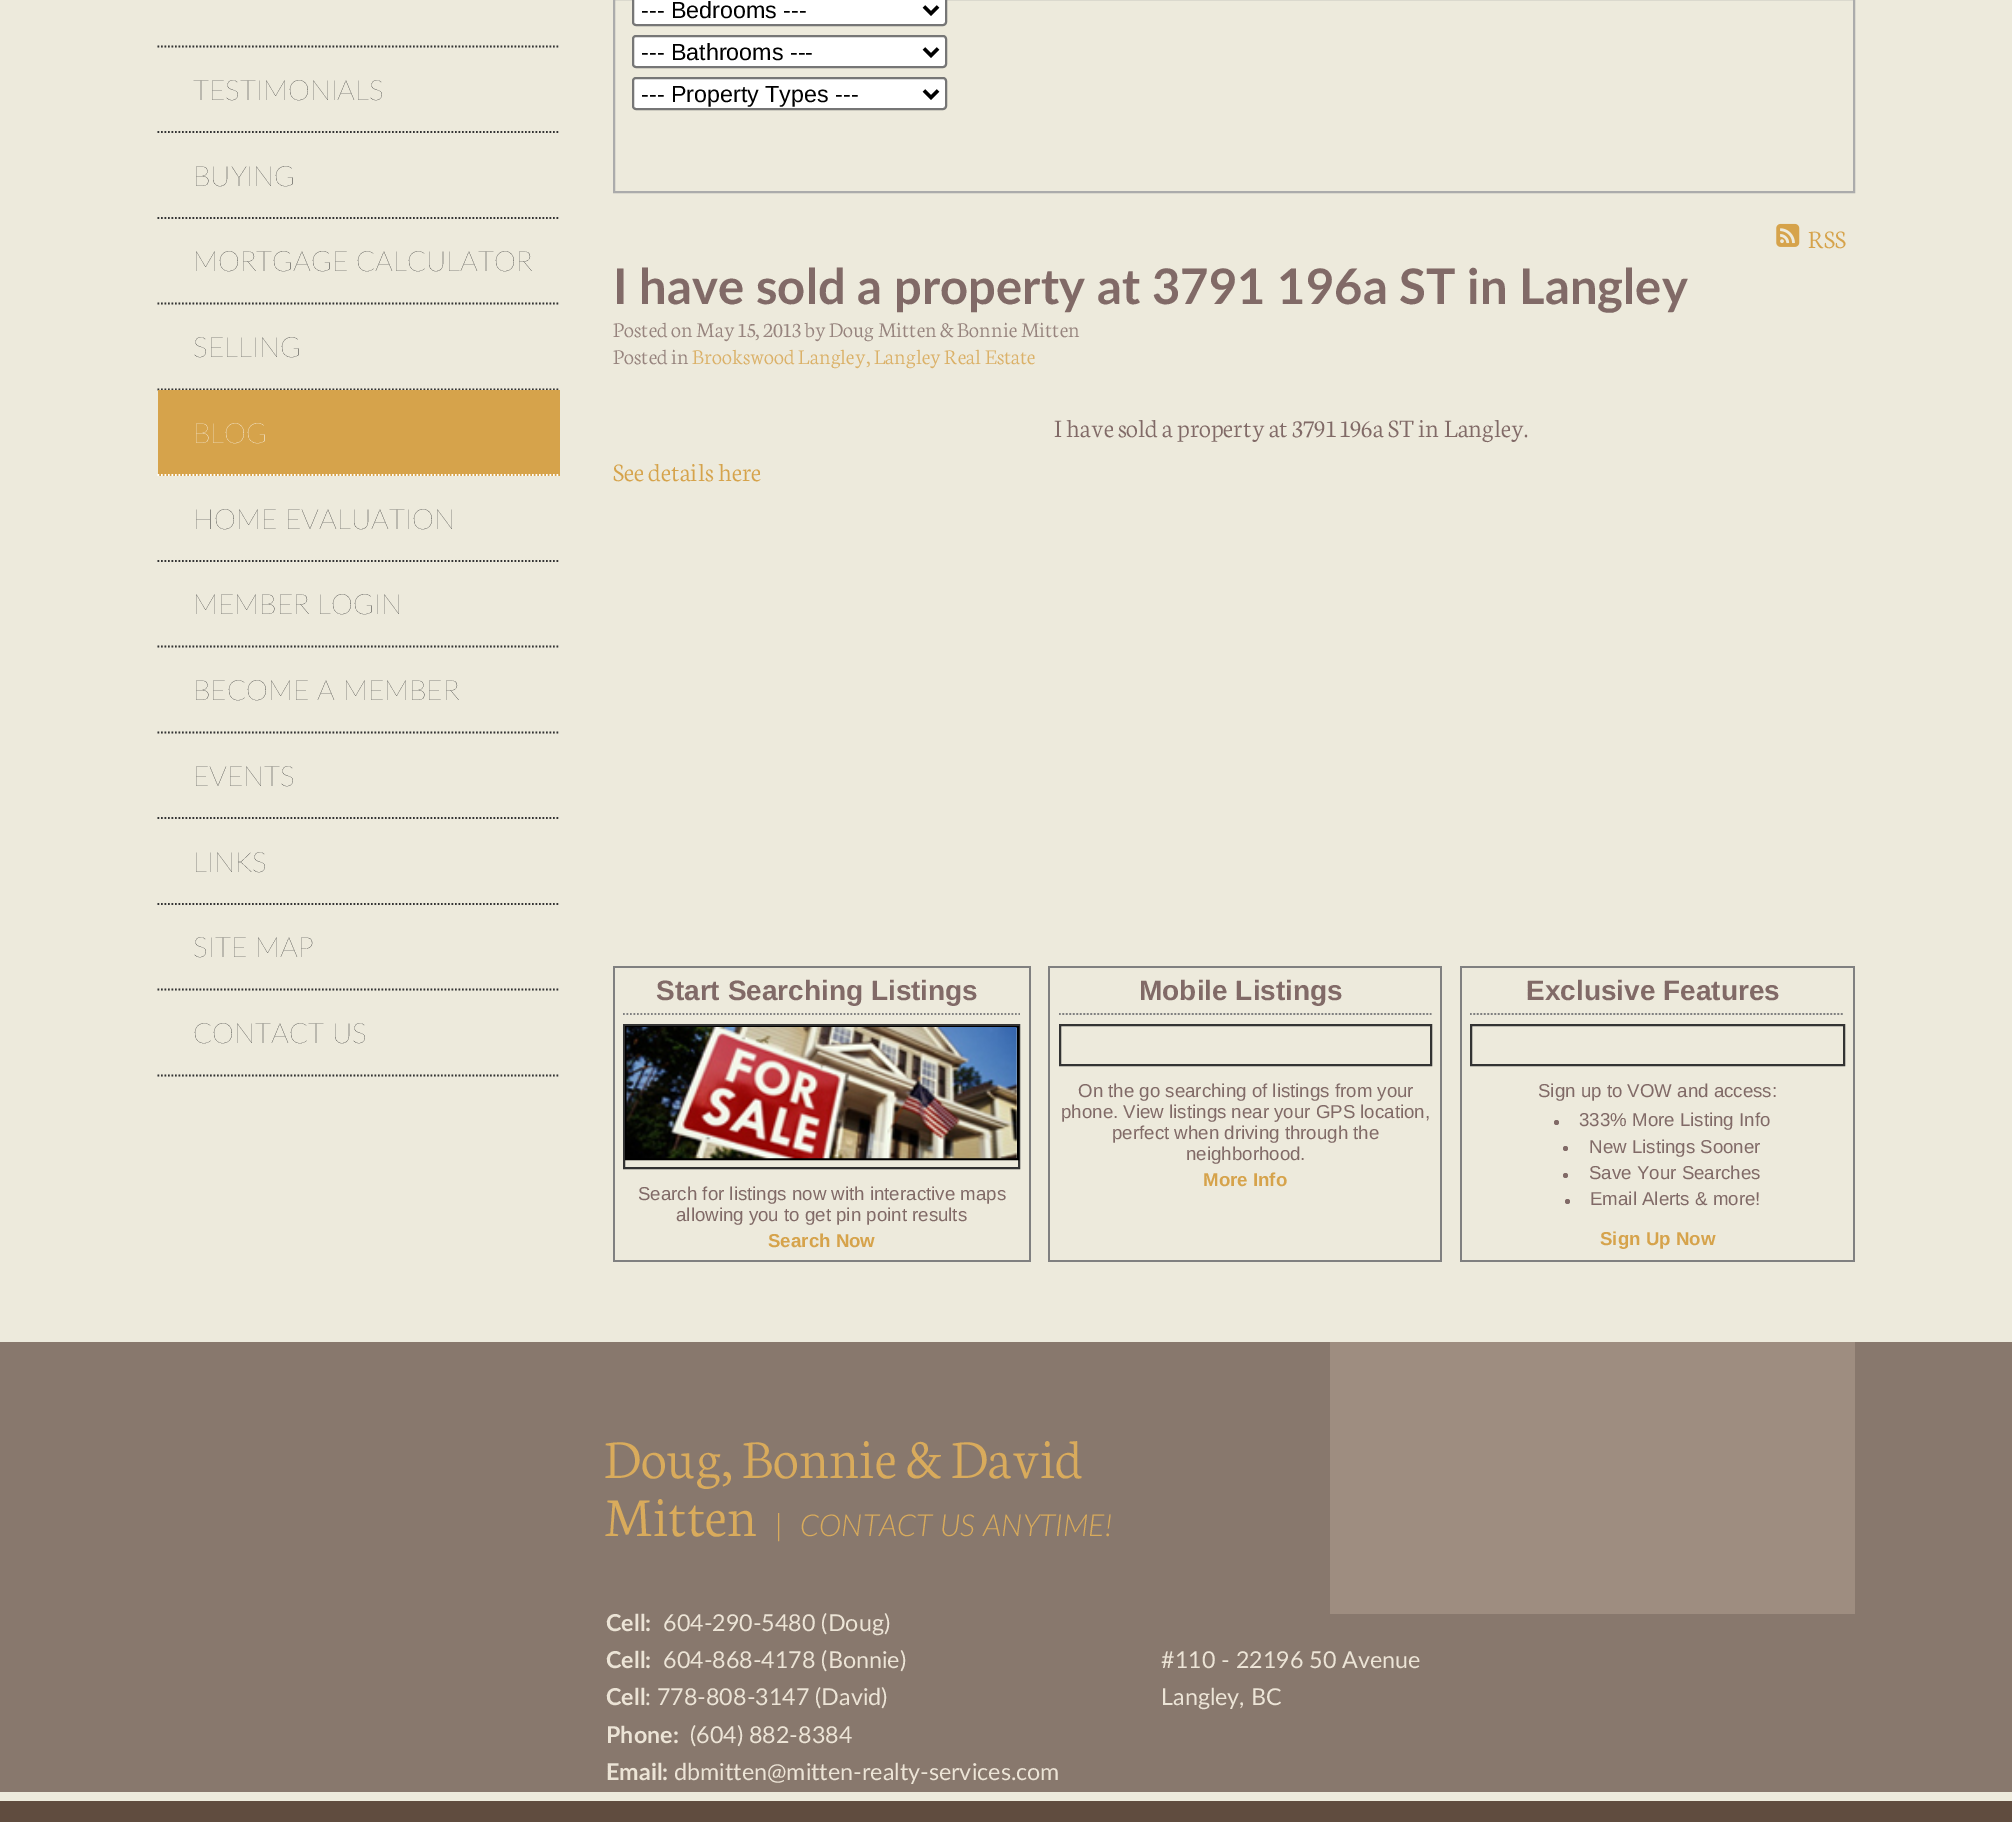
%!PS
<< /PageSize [2012 1822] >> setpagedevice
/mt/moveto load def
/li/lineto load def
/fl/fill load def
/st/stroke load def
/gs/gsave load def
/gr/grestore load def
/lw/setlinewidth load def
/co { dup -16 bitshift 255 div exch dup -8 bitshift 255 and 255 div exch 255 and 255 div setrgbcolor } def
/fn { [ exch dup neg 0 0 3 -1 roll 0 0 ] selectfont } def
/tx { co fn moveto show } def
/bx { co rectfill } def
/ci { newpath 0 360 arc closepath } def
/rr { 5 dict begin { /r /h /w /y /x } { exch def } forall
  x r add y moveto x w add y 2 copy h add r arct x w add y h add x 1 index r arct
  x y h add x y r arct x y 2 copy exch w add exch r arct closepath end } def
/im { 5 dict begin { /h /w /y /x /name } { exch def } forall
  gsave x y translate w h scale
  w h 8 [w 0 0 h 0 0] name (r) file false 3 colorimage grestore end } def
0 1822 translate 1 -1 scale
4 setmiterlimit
0 0 2012 1822 16#EDEADC bx
16#ABABAB co
2 lw
614 -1 1240 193 rectstroke
16#FFFFFF co
633 -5 313 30 3 rr gs fl gr
16#767676 co
st
16#000000 co
3.5 lw
924 6.5 mt 931 13.5 li 938 6.5 li st
16#FFFFFF co
633 36 313 31 3 rr gs fl gr
16#767676 co
2 lw
st
16#000000 co
3.5 lw
924 48.5 mt 931 55.5 li 938 48.5 li st
16#FFFFFF co
633 78 313 31 3 rr gs fl gr
16#767676 co
2 lw
st
16#000000 co
3.5 lw
924 90.5 mt 931 97.5 li 938 90.5 li st
16#333333 co
1.8 lw
[1.75 1.75] 0 setdash
157.5 46.5 mt 560 46.5 li st
157.5 132 mt 560 132 li st
157.5 218 mt 560 218 li st
157.5 303.5 mt 560 303.5 li st
157.5 389.5 mt 560 389.5 li st
158 390 402 86 16#D6A34B bx
16#FFFFFF co
157.5 475 mt 560 475 li st
16#333333 co
157.5 561 mt 560 561 li st
157.5 646.5 mt 560 646.5 li st
157.5 732.5 mt 560 732.5 li st
157.5 818 mt 560 818 li st
157.5 904 mt 560 904 li st
157.5 989.5 mt 560 989.5 li st
157.5 1075.5 mt 560 1075.5 li st
(media/1.raw) 1776 223 24 24 im
613 966 418 2 16#808080 bx
1029 966 2 296 16#808080 bx
613 1260 418 2 16#808080 bx
613 966 2 296 16#808080 bx
623 1014 mt 1020 1014 li st
16#333333 co
2 lw
[] 0 setdash
624 1025 395 143 rectstroke
16#000000 co
626 1027 392 132 rectstroke
(media/2.raw) 626 1027 391 132 im
1048 966 394 2 16#808080 bx
1440 966 2 296 16#808080 bx
1048 1260 394 2 16#808080 bx
1048 966 2 296 16#808080 bx
1.8 lw
[1.75 1.75] 0 setdash
1059 1014 mt 1431.5 1014 li st
16#333333 co
2 lw
[] 0 setdash
1060 1025 371 40 rectstroke
1460 966 395 2 16#808080 bx
1853 966 2 296 16#808080 bx
1460 1260 395 2 16#808080 bx
1460 966 2 296 16#808080 bx
1.8 lw
[1.75 1.75] 0 setdash
1470 1014 mt 1844.5 1014 li st
16#333333 co
2 lw
[] 0 setdash
1471 1025 373 40 rectstroke
16#816A67 co
1556.5 1122.5 2.5 ci fl
1565.5 1148.5 2.5 ci fl
1565.5 1175.5 2.5 ci fl
1567.5 1201.5 2.5 ci fl
0 1342 2012 450 16#88786D bx
1330 1342 525 272 16#9E8D80 bx
0 1801 2012 21 16#604C3F bx
(--- Bedrooms ---) 641 18 /LiberationSans-Regular 23.3 16#000000 tx
(--- Bathrooms ---) 641 60 /LiberationSans-Regular 23.3 16#000000 tx
(--- Property Types ---) 641 102 /LiberationSans-Regular 23.3 16#000000 tx
(TESTIMONIALS) 193 100 /Lato-ExtraLight 28 16#333333 tx
(BUYING) 193 186 /Lato-ExtraLight 28 16#333333 tx
(MORTGAGE CALCULATOR) 193 271 /Lato-ExtraLight 28 16#333333 tx
(SELLING) 193 357 /Lato-ExtraLight 28 16#333333 tx
(BLOG) 193 443 /Lato-ExtraLight 28 16#FFFFFF tx
(HOME EVALUATION) 193 529 /Lato-ExtraLight 28 16#333333 tx
(MEMBER LOGIN) 193 614 /Lato-ExtraLight 28 16#333333 tx
(BECOME A MEMBER) 193 700 /Lato-ExtraLight 28 16#333333 tx
(EVENTS) 193 786 /Lato-ExtraLight 28 16#333333 tx
(LINKS) 193 872 /Lato-ExtraLight 28 16#333333 tx
(SITE MAP) 193 957 /Lato-ExtraLight 28 16#333333 tx
(CONTACT US) 193 1043 /Lato-ExtraLight 28 16#333333 tx
(RSS) 1808 248 /Neuton-Light 26.8 16#D6A34B tx
(I have sold a property at 3791 196a ST in Langley) 613 304 /Lato-Bold 49 16#816A67 tx
(Posted on May 15, 2013) 613 337 /Neuton-Light 22.4 16#97847E tx
(by Doug Mitten & Bonnie Mitten) 804 337 /Neuton-Light 22.4 16#97847E tx
(Posted in) 613 364 /Neuton-Light 22.4 16#97847E tx
(Brookswood Langley, Langley Real Estate) 692 364 /Neuton-Light 22.4 16#DBB168 tx
(I have sold a property at 3791 196a ST in Langley.) 1054 437 /Neuton-Light 26.8 16#816A67 tx
(See details here) 613 481 /Neuton-Light 26.8 16#D6A34B tx
(Start Searching Listings) 656 1000 /LiberationSans-Bold 28 16#816A67 tx
(Search for listings now with interactive maps) 638 1200 /LiberationSans-Regular 18.7 16#816A67 tx
(allowing you to get pin point results) 676 1221 /LiberationSans-Regular 18.7 16#816A67 tx
(Search Now) 768 1247 /LiberationSans-Bold 18.7 16#D6A34B tx
(Mobile Listings) 1139 1000 /LiberationSans-Bold 28 16#816A67 tx
(On the go searching of listings from your) 1078 1097 /LiberationSans-Regular 18.7 16#816A67 tx
(phone. View listings near your GPS location,) 1061 1118 /LiberationSans-Regular 18.7 16#816A67 tx
(perfect when driving through the) 1112 1139 /LiberationSans-Regular 18.7 16#816A67 tx
(neighborhood.) 1186 1160 /LiberationSans-Regular 18.7 16#816A67 tx
(More Info) 1203 1186 /LiberationSans-Bold 18.7 16#D6A34B tx
(Exclusive Features) 1526 1000 /LiberationSans-Bold 28 16#816A67 tx
(Sign up to VOW and access:) 1538 1097 /LiberationSans-Regular 18.7 16#816A67 tx
(333% More Listing Info) 1579 1126 /LiberationSans-Regular 18.7 16#816A67 tx
(New Listings Sooner) 1589 1153 /LiberationSans-Regular 18.7 16#816A67 tx
(Save Your Searches) 1589 1179 /LiberationSans-Regular 18.7 16#816A67 tx
(Email Alerts & more!) 1590 1205 /LiberationSans-Regular 18.7 16#816A67 tx
(Sign Up Now) 1600 1245 /LiberationSans-Bold 18.7 16#D6A34B tx
(Doug, Bonnie & David) 604 1478 /Neuton-Light 58.25 16#D9AB5C tx
(Mitten) 604 1536 /Neuton-Light 58.25 16#D9AB5C tx
(|) 775 1536 /Lato-LightItalic 30.25 16#D9AB5C tx
(CONTACT US ANYTIME!) 800 1536 /Lato-LightItalic 30.25 16#D9AB5C tx
(Cell:) 606 1631 /Lato-Bold 23.3 16#ECE4D6 tx
(604-290-5480 \(Doug\)) 663 1631 /Lato-Regular 23.3 16#ECE4D6 tx
(Cell:) 606 1668 /Lato-Bold 23.3 16#ECE4D6 tx
(604-868-4178 \(Bonnie\)) 663 1668 /Lato-Regular 23.3 16#ECE4D6 tx
(Cell) 606 1705 /Lato-Bold 23.3 16#ECE4D6 tx
(: 778-808-3147 \(David\)) 645 1705 /Lato-Regular 23.3 16#ECE4D6 tx
(Phone:) 606 1743 /Lato-Bold 23.3 16#ECE4D6 tx
(\(604\) 882-8384) 690 1743 /Lato-Regular 23.3 16#ECE4D6 tx
(Email:) 606 1780 /Lato-Bold 23.3 16#ECE4D6 tx
(dbmitten@mitten-realty-services.com) 674 1780 /Lato-Regular 23.3 16#ECE4D6 tx
(#110 - 22196 50 Avenue) 1161 1668 /Lato-Regular 23.3 16#ECE4D6 tx
(Langley, BC) 1161 1705 /Lato-Regular 23.3 16#ECE4D6 tx
showpage
